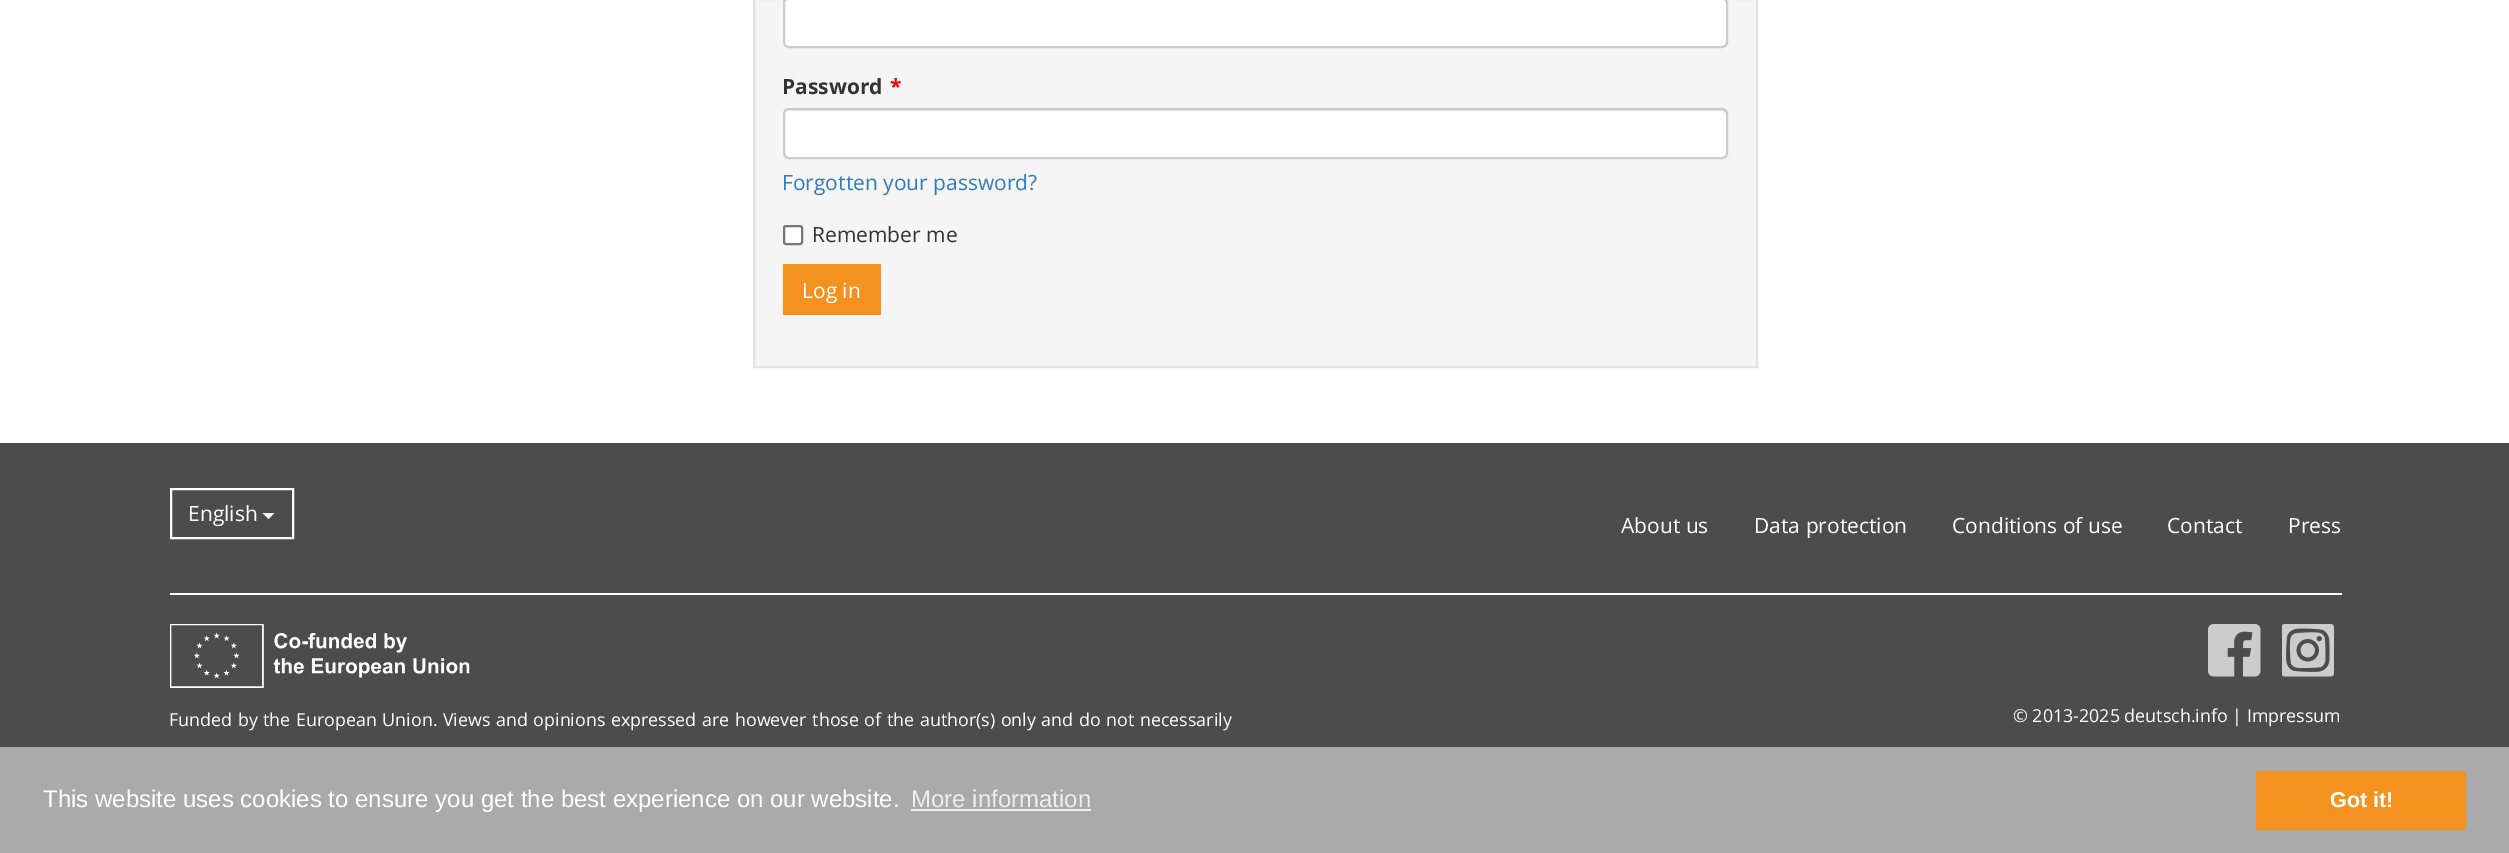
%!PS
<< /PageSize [2509 853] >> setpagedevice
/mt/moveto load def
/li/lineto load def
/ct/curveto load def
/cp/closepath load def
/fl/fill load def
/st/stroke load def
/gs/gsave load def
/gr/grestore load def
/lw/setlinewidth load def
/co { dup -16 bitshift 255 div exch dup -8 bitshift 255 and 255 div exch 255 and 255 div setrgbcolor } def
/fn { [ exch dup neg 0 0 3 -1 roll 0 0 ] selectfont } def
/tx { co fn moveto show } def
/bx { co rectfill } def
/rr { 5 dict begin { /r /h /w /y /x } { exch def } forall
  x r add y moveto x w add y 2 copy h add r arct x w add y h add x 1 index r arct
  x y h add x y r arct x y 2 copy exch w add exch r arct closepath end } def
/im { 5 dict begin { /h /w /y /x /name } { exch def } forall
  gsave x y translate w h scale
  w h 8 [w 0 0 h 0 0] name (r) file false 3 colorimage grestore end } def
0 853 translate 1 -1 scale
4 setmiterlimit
0 0 2509 853 16#FFFFFF bx
16#F5F5F5 co
754 -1 mt 1757 -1 li 1757 367 li 754 367 li cp gs fl gr
16#E3E3E3 co
2 lw
st
16#FFFFFF co
783 -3 945 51 6 rr fl
16#ECECEC co
789 0 mt 1722 0 li 1724 0 1726 2 1726 4 ct 1726 45 li 1727 44 1727 43 1727 42 ct 1727 4 li 1727 1 1725 -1 1722 -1 ct 790 -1 li 788 -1 787 0 786 1 ct cp fl
16#CCCCCC co
784 -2 943 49 5 rr st
16#FFFFFF co
783 108 945 51 6 rr fl
16#ECECEC co
789 111 mt 1722 111 li 1724 111 1726 113 1726 116 ct 1726 154 li 1725 157 li 1726 156 1727 154 1727 153 ct 1727 115 li 1727 112 1725 110 1722 110 ct 790 110 li 788 110 787 111 786 112 ct cp fl
16#CCCCCC co
784 109 943 49 5 rr st
16#FFFFFF co
784 226 18 18 2 rr gs fl gr
16#767676 co
st
783 264 98 51 16#F3921F bx
0 443 2509 304 16#4C4C4C bx
170 593 2172 2 16#FFFFFF bx
171 489 122 49 rectstroke
262.5 513 mt 274.5 513 li 268.5 519 li cp fl
(media/1.raw) 170 624 300 64 im
(media/2.raw) 2208 624 53 53 im
(media/3.raw) 2282 624 52 53 im
0 747 2509 106 16#AAAAAA bx
911 809 180 2 16#EEEEEE bx
2256 771 210 59 16#F3921F bx
(Password) 782 94 /OpenSans-Bold 21 16#333333 tx
(*) 890 94 /OpenSans-Bold 21 16#FF0000 tx
(Forgotten your password?) 782 190 /OpenSans-Regular 21 16#337AB7 tx
(Remember me) 812 242 /OpenSans-Regular 21 16#333333 tx
(Log in) 802 298 /OpenSans-Regular 21 16#FFFFFF tx
(English) 188 521 /OpenSans-Regular 21 16#FFFFFF tx
(About us) 1621 533 /OpenSans-Regular 21 16#FFFFFF tx
(Data protection) 1754 533 /OpenSans-Regular 21 16#FFFFFF tx
(Conditions of use) 1952 533 /OpenSans-Regular 21 16#FFFFFF tx
(Contact) 2167 533 /OpenSans-Regular 21 16#FFFFFF tx
(Press) 2288 533 /OpenSans-Regular 21 16#FFFFFF tx
/OpenSans-Regular 17.85 fn
169 726 mt 1 0 32 (Funded by the European Union. Views and opinions expressed are however those of the author\(s\) only and do not necessarily) widthshow
(© 2013-2025 deutsch.info | Impressum) 2013 722 /OpenSans-Regular 17.85 16#FFFFFF tx
(This website uses cookies to ensure you get the best experience on our website.) 43 807 /LiberationSans-Regular 24 16#FFFFFF tx
(More information) 911 807 /LiberationSans-Regular 24 16#EEEEEE tx
(Got it!) 2330 807 /LiberationSans-Bold 21.5 16#FFFFFF tx
showpage
